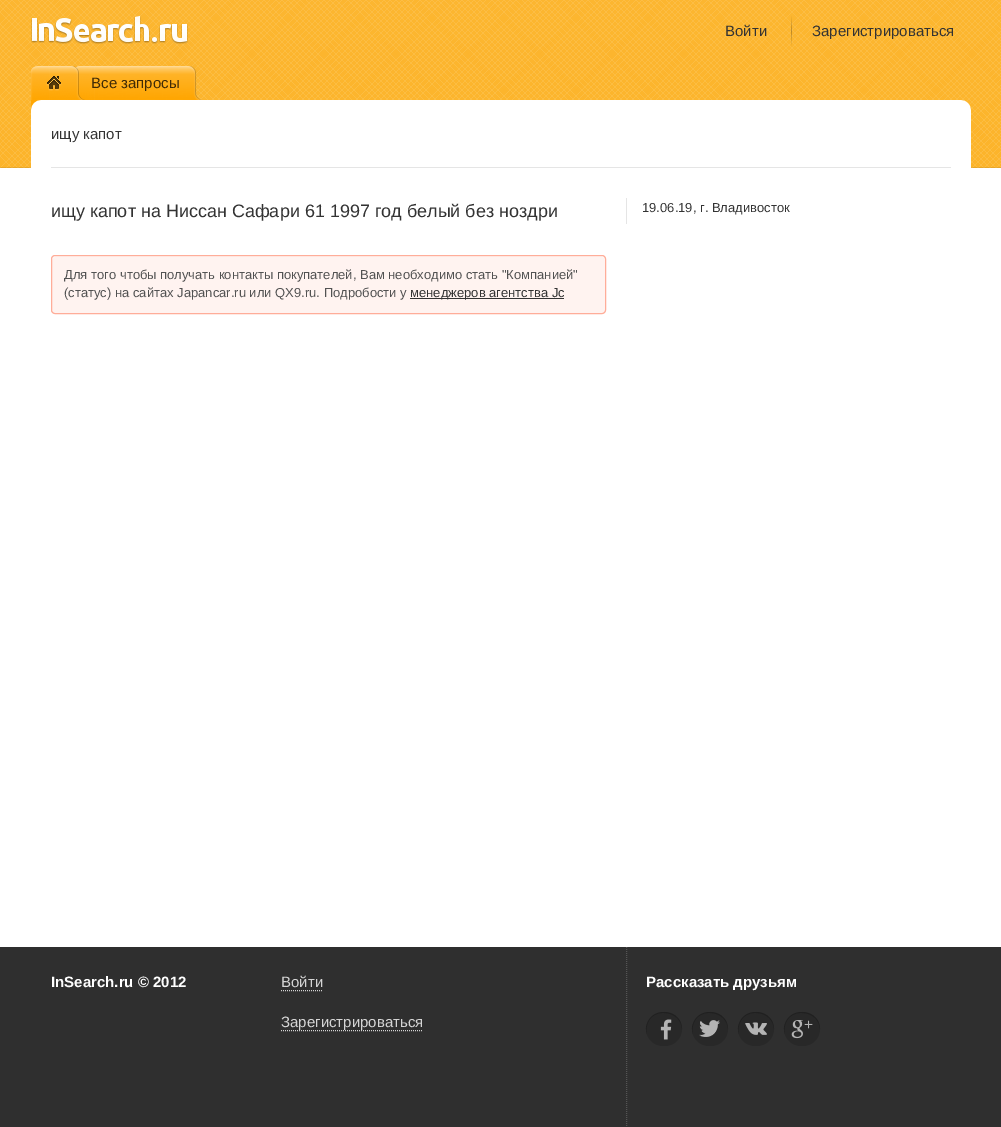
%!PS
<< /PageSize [1001 1127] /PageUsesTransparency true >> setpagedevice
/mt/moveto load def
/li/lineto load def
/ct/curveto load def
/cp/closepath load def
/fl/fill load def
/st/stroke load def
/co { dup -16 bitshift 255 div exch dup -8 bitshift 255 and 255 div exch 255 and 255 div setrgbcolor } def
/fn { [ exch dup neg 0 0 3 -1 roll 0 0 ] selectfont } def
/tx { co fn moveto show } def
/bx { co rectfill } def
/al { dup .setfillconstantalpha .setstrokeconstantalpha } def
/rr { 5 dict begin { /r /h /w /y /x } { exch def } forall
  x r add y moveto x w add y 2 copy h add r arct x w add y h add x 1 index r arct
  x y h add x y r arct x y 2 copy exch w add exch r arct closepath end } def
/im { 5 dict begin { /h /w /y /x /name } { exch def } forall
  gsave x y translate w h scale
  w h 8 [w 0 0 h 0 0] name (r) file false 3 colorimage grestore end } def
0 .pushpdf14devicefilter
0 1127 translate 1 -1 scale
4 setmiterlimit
0 0 1001 1127 16#FFFFFF bx
(media/1.raw) 0 0 1001 168 im
(media/2.raw) 31 15 157 29 im
(media/3.raw) 31 66 19 44 im
(media/6.raw) 75 66 20 34 im
(media/4.raw) 50 66 35 34 im
(media/5.raw) 46 76 16 15 im
(media/7.raw) 95 66 107 34 im
(media/8.raw) 31 100 940 68 im
51 167 900 1 16#E5E5E5 bx
16#FFF3F0 co
51 255 555 59 4 rr fl
16#FFFBFA co
55 257 mt 602 257 li 604 257 605 258 605 260 ct 605 258 604 256 602 256 ct 55 256 li 53 257 li 52 258 li 52 260 li 52 258 53 257 55 257 ct cp fl
16#FFAD99 co
51.5 255.5 554 58 3.5 rr st
410 298 154 1 16#333333 bx
626 198 1 26 16#E5E5E5 bx
0 947 1001 180 16#2F2F2F bx
16#D5D5D5 co
[1 1] 0 setdash
281 990.5 mt 322 990.5 li st
281 1030.5 mt 423 1030.5 li st
16#555555 co
626.5 947 mt 626.5 1127 li st
16#282828 co
646 1012 36 34 17 rr fl
0.2 al
16#000000 co
663 1013 mt 675.5 1013 681.5 1021 682 1029.5 ct 682.5 1010 654.5 1005.5 647.5 1022.5 ct 645.5 1026 645.5 1030.5 647 1034.5 ct 644.5 1025 650 1013 663 1013 ct cp fl
1 al
(media/9.raw) 660 1019 12 21 im
16#282828 co
692 1012 36 34 17 rr fl
0.2 al
16#000000 co
709 1013 mt 721.5 1013 727.5 1021 728 1029.5 ct 728.5 1010 700.5 1005.5 693.5 1022.5 ct 691.5 1026 691.5 1030.5 693 1034.5 ct 690.5 1025 696 1013 709 1013 ct cp fl
1 al
(media/10.raw) 699 1020 21 17 im
16#282828 co
738 1012 36 34 17 rr fl
0.2 al
16#000000 co
755 1013 mt 767.5 1013 773.5 1021 774 1029.5 ct 774.5 1010 746.5 1005.5 739.5 1022.5 ct 737.5 1026 737.5 1030.5 739 1034.5 ct 736.5 1025 742 1013 755 1013 ct cp fl
1 al
(media/11.raw) 745 1022 22 13 im
16#282828 co
784 1012 36 34 17 rr fl
0.2 al
16#000000 co
801 1013 mt 813.5 1013 819.5 1021 820 1029.5 ct 820.5 1010 792.5 1005.5 785.5 1022.5 ct 783.5 1026 783.5 1030.5 785 1034.5 ct 782.5 1025 788 1013 801 1013 ct cp fl
1 al
(media/12.raw) 791 1020 22 19 im
(Войти) 725 36 /LiberationSans-Regular 15 16#333333 tx
(Зарегистрироваться) 812 36 /LiberationSans-Regular 15 16#333333 tx
(Все запросы) 91 88 /LiberationSans-Regular 15 16#402B06 tx
(ищу капот) 51 139 /LiberationSans-Regular 15 16#333333 tx
(ищу капот на Ниссан Сафари 61 1997 год белый без ноздри) 51 217 /LiberationSans-Regular 18 16#333333 tx
(Для того чтобы получать контакты покупателей, Вам необходимо стать "Компанией") 64 279 /LiberationSans-Regular 13 16#525252 tx
(\(статус\) на сайтах Japancar.ru или QX9.ru. Подробости у) 64 297 /LiberationSans-Regular 13 16#525252 tx
(менеджеров агентства Jc) 410 297 /LiberationSans-Regular 13 16#333333 tx
(19.06.19, г. Владивосток) 642 212 /LiberationSans-Regular 13 16#333333 tx
(InSearch.ru © 2012) 51 987 /LiberationSans-Bold 15 16#FFFFFF tx
(Войти) 281 987 /LiberationSans-Regular 15 16#D5D5D5 tx
(Зарегистрироваться) 281 1027 /LiberationSans-Regular 15 16#D5D5D5 tx
(Рассказать друзьям) 646 987 /LiberationSans-Bold 15 16#FFFFFF tx
.poppdf14devicefilter showpage
